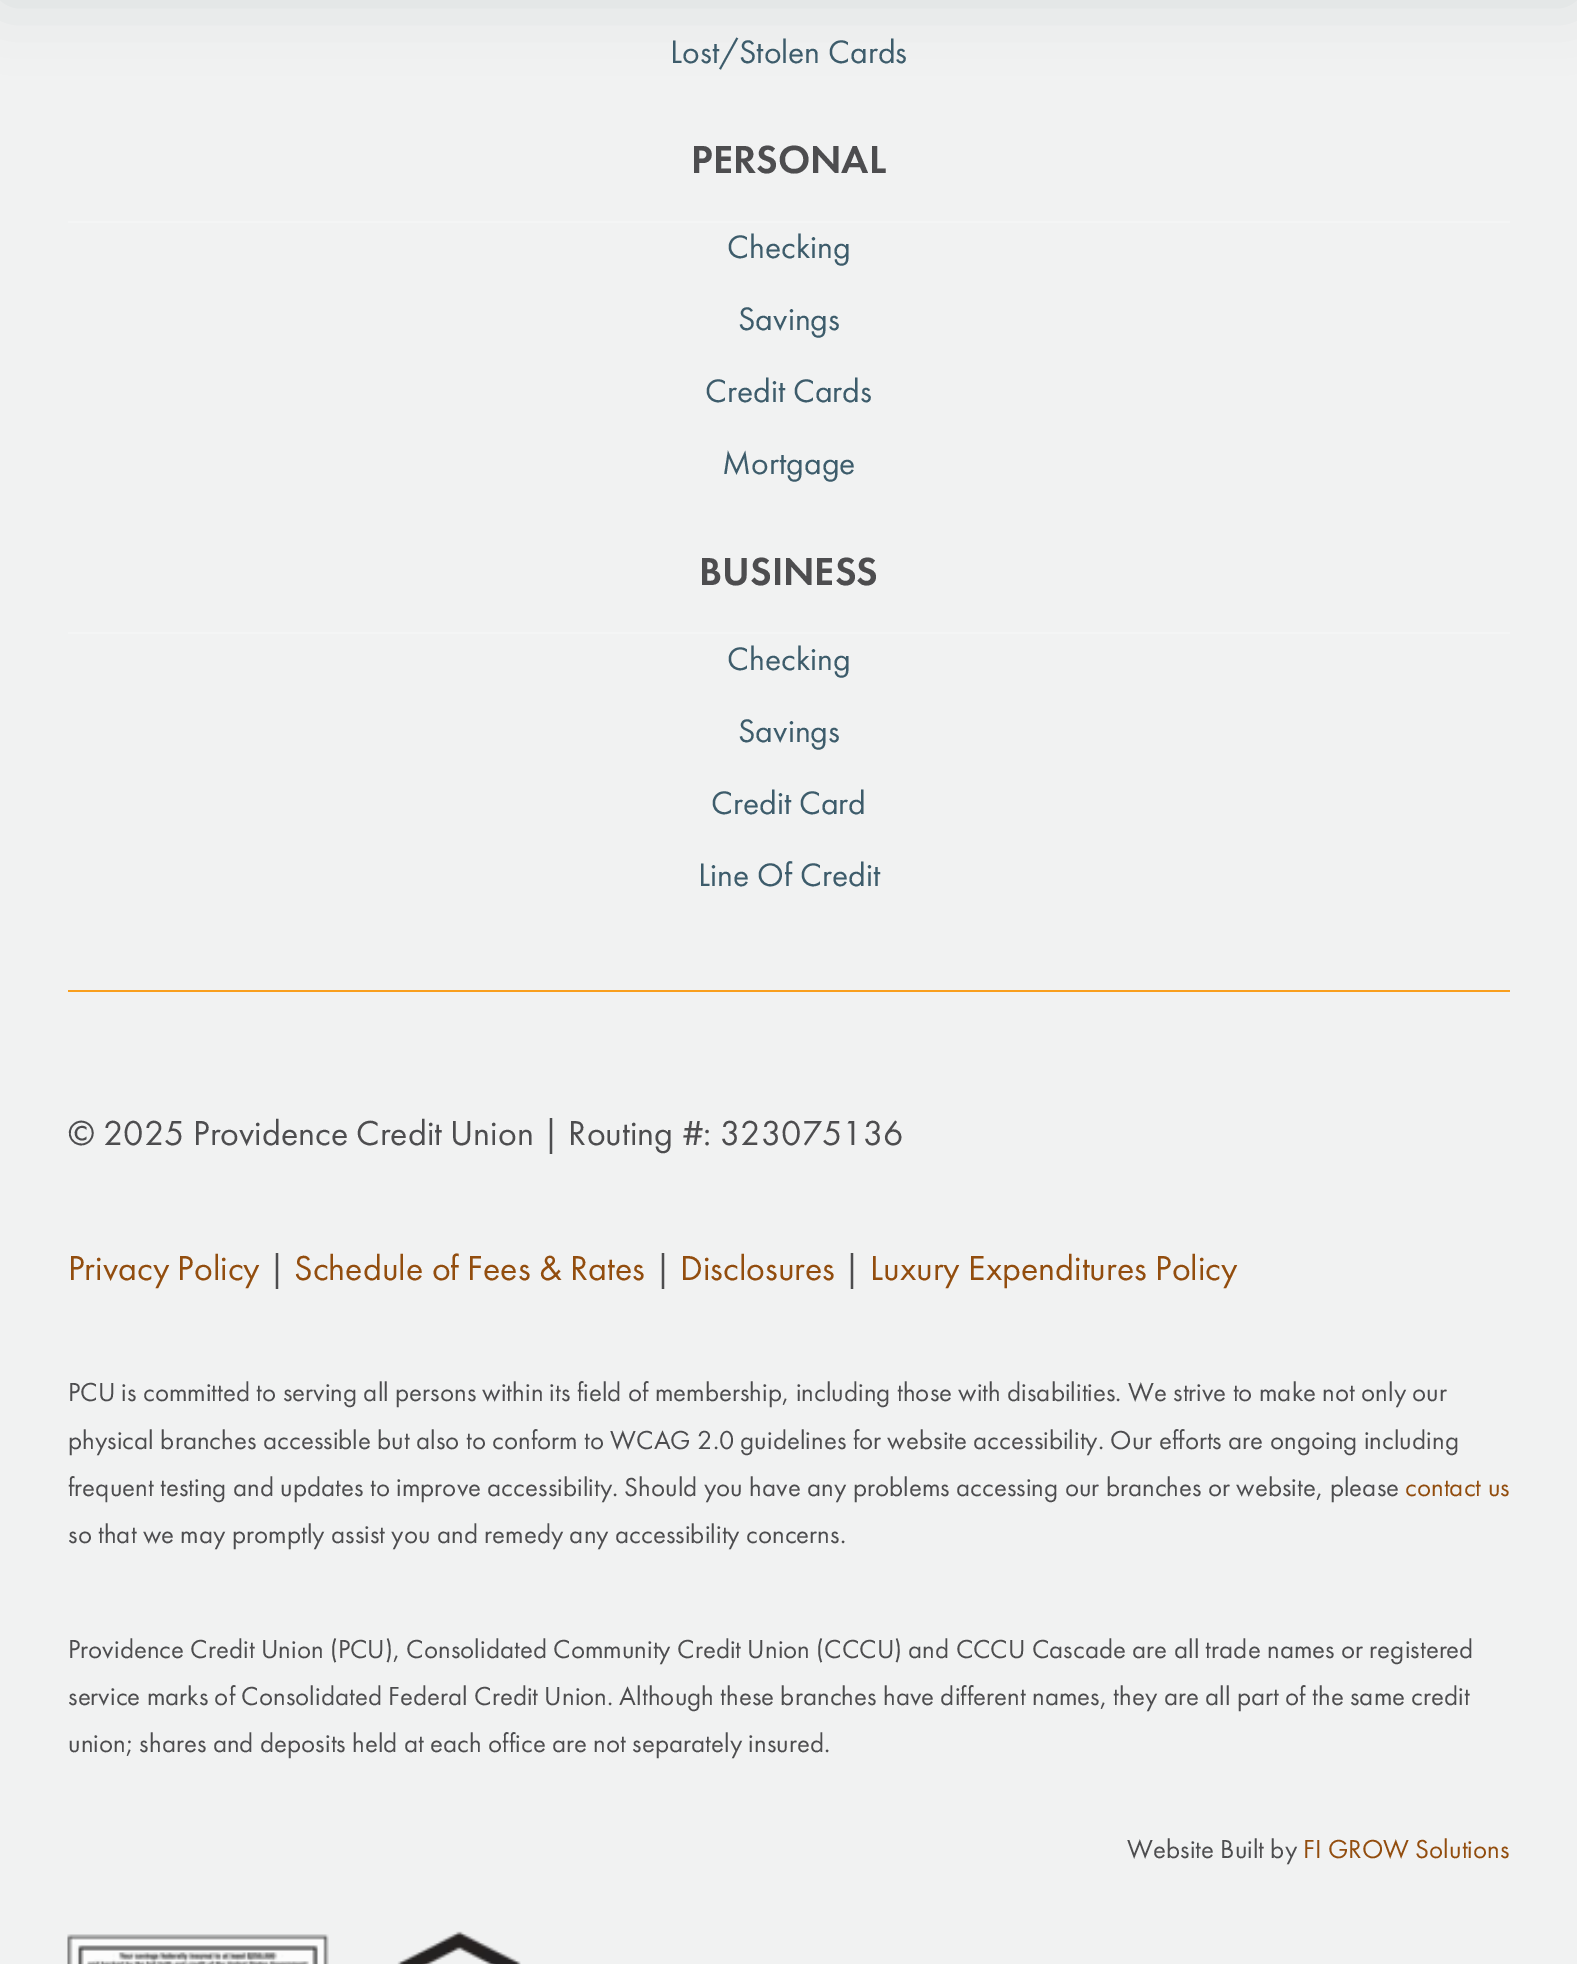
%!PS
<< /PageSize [1577 1964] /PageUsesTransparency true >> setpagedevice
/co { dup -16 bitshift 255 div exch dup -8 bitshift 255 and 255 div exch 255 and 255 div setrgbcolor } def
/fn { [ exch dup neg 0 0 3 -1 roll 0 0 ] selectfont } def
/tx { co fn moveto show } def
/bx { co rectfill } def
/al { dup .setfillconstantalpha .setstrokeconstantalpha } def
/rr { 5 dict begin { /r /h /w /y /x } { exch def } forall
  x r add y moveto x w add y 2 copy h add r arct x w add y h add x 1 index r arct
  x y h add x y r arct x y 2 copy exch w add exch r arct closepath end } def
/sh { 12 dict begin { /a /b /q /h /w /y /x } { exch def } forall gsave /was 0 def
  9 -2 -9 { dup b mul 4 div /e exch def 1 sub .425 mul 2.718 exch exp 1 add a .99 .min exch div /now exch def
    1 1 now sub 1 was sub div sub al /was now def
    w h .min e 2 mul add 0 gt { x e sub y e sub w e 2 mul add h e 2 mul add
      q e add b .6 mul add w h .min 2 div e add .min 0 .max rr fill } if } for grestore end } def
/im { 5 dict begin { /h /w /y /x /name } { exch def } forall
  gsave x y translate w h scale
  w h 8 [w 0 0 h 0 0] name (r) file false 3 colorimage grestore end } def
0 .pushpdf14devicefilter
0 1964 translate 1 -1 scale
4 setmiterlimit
0 0 1577 1964 16#F1F2F2 bx
16#77838F co
0 -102 1577 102 0 34 .2 sh
68 221 1442 2 16#F4F5F5 bx
68 632 1442 2 16#F4F5F5 bx
68 990 1442 2 16#F99F1E bx
(media/1.raw) 67 1934 262 30 im
(media/2.raw) 397 1931 124 33 im
(Lost/Stolen Cards) 670 63 /FuturaPT-Regular 33.75 16#3D5C6B tx
(PERSONAL) 691 173 /FuturaPT-Medium 40.5 16#4D4D4F tx
(Checking) 727 258 /FuturaPT-Regular 33.75 16#3D5C6B tx
(Savings) 738 330 /FuturaPT-Regular 33.75 16#3D5C6B tx
(Credit Cards) 705 402 /FuturaPT-Regular 33.75 16#3D5C6B tx
(Mortgage) 722 474 /FuturaPT-Regular 33.75 16#3D5C6B tx
(BUSINESS) 699 585 /FuturaPT-Medium 40.5 16#4D4D4F tx
(Checking) 727 670 /FuturaPT-Regular 33.75 16#3D5C6B tx
(Savings) 738 742 /FuturaPT-Regular 33.75 16#3D5C6B tx
(Credit Card) 711 814 /FuturaPT-Regular 33.75 16#3D5C6B tx
(Line Of Credit) 698 886 /FuturaPT-Regular 33.75 16#3D5C6B tx
(© 2025 Providence Credit Union | Routing #: 323075136) 68 1145 /FuturaPT-Regular 36 16#4D4D4F tx
(Privacy Policy) 68 1280 /FuturaPT-Regular 36 16#924D0E tx
(|) 268 1280 /FuturaPT-Regular 36 16#4D4D4F tx
(Schedule of Fees & Rates) 294 1280 /FuturaPT-Regular 36 16#924D0E tx
(|) 654 1280 /FuturaPT-Regular 36 16#4D4D4F tx
(Disclosures) 680 1280 /FuturaPT-Regular 36 16#924D0E tx
(|) 843 1280 /FuturaPT-Regular 36 16#4D4D4F tx
(Luxury Expenditures Policy) 870 1280 /FuturaPT-Regular 36 16#924D0E tx
(PCU is committed to serving all persons within its field of membership, including those with disabilities. We strive to make not only our) 68 1401 /FuturaPT-Regular 27 16#4D4D4F tx
(physical branches accessible but also to conform to WCAG 2.0 guidelines for website accessibility. Our efforts are ongoing including) 68 1449 /FuturaPT-Regular 27 16#4D4D4F tx
(frequent testing and updates to improve accessibility. Should you have any problems accessing our branches or website, please) 68 1496 /FuturaPT-Regular 27 16#4D4D4F tx
(contact us) 1405 1496 /FuturaPT-Regular 27 16#924D0E tx
(so that we may promptly assist you and remedy any accessibility concerns.) 68 1543 /FuturaPT-Regular 27 16#4D4D4F tx
(Providence Credit Union \(PCU\), Consolidated Community Credit Union \(CCCU\) and CCCU Cascade are all trade names or registered) 68 1658 /FuturaPT-Regular 27 16#4D4D4F tx
(service marks of Consolidated Federal Credit Union. Although these branches have different names, they are all part of the same credit) 68 1705 /FuturaPT-Regular 27 16#4D4D4F tx
(union; shares and deposits held at each office are not separately insured.) 68 1752 /FuturaPT-Regular 27 16#4D4D4F tx
(Website Built by) 1127 1858 /FuturaPT-Regular 27 16#4D4D4F tx
(FI GROW Solutions) 1303 1858 /FuturaPT-Regular 27 16#924D0E tx
.poppdf14devicefilter showpage
